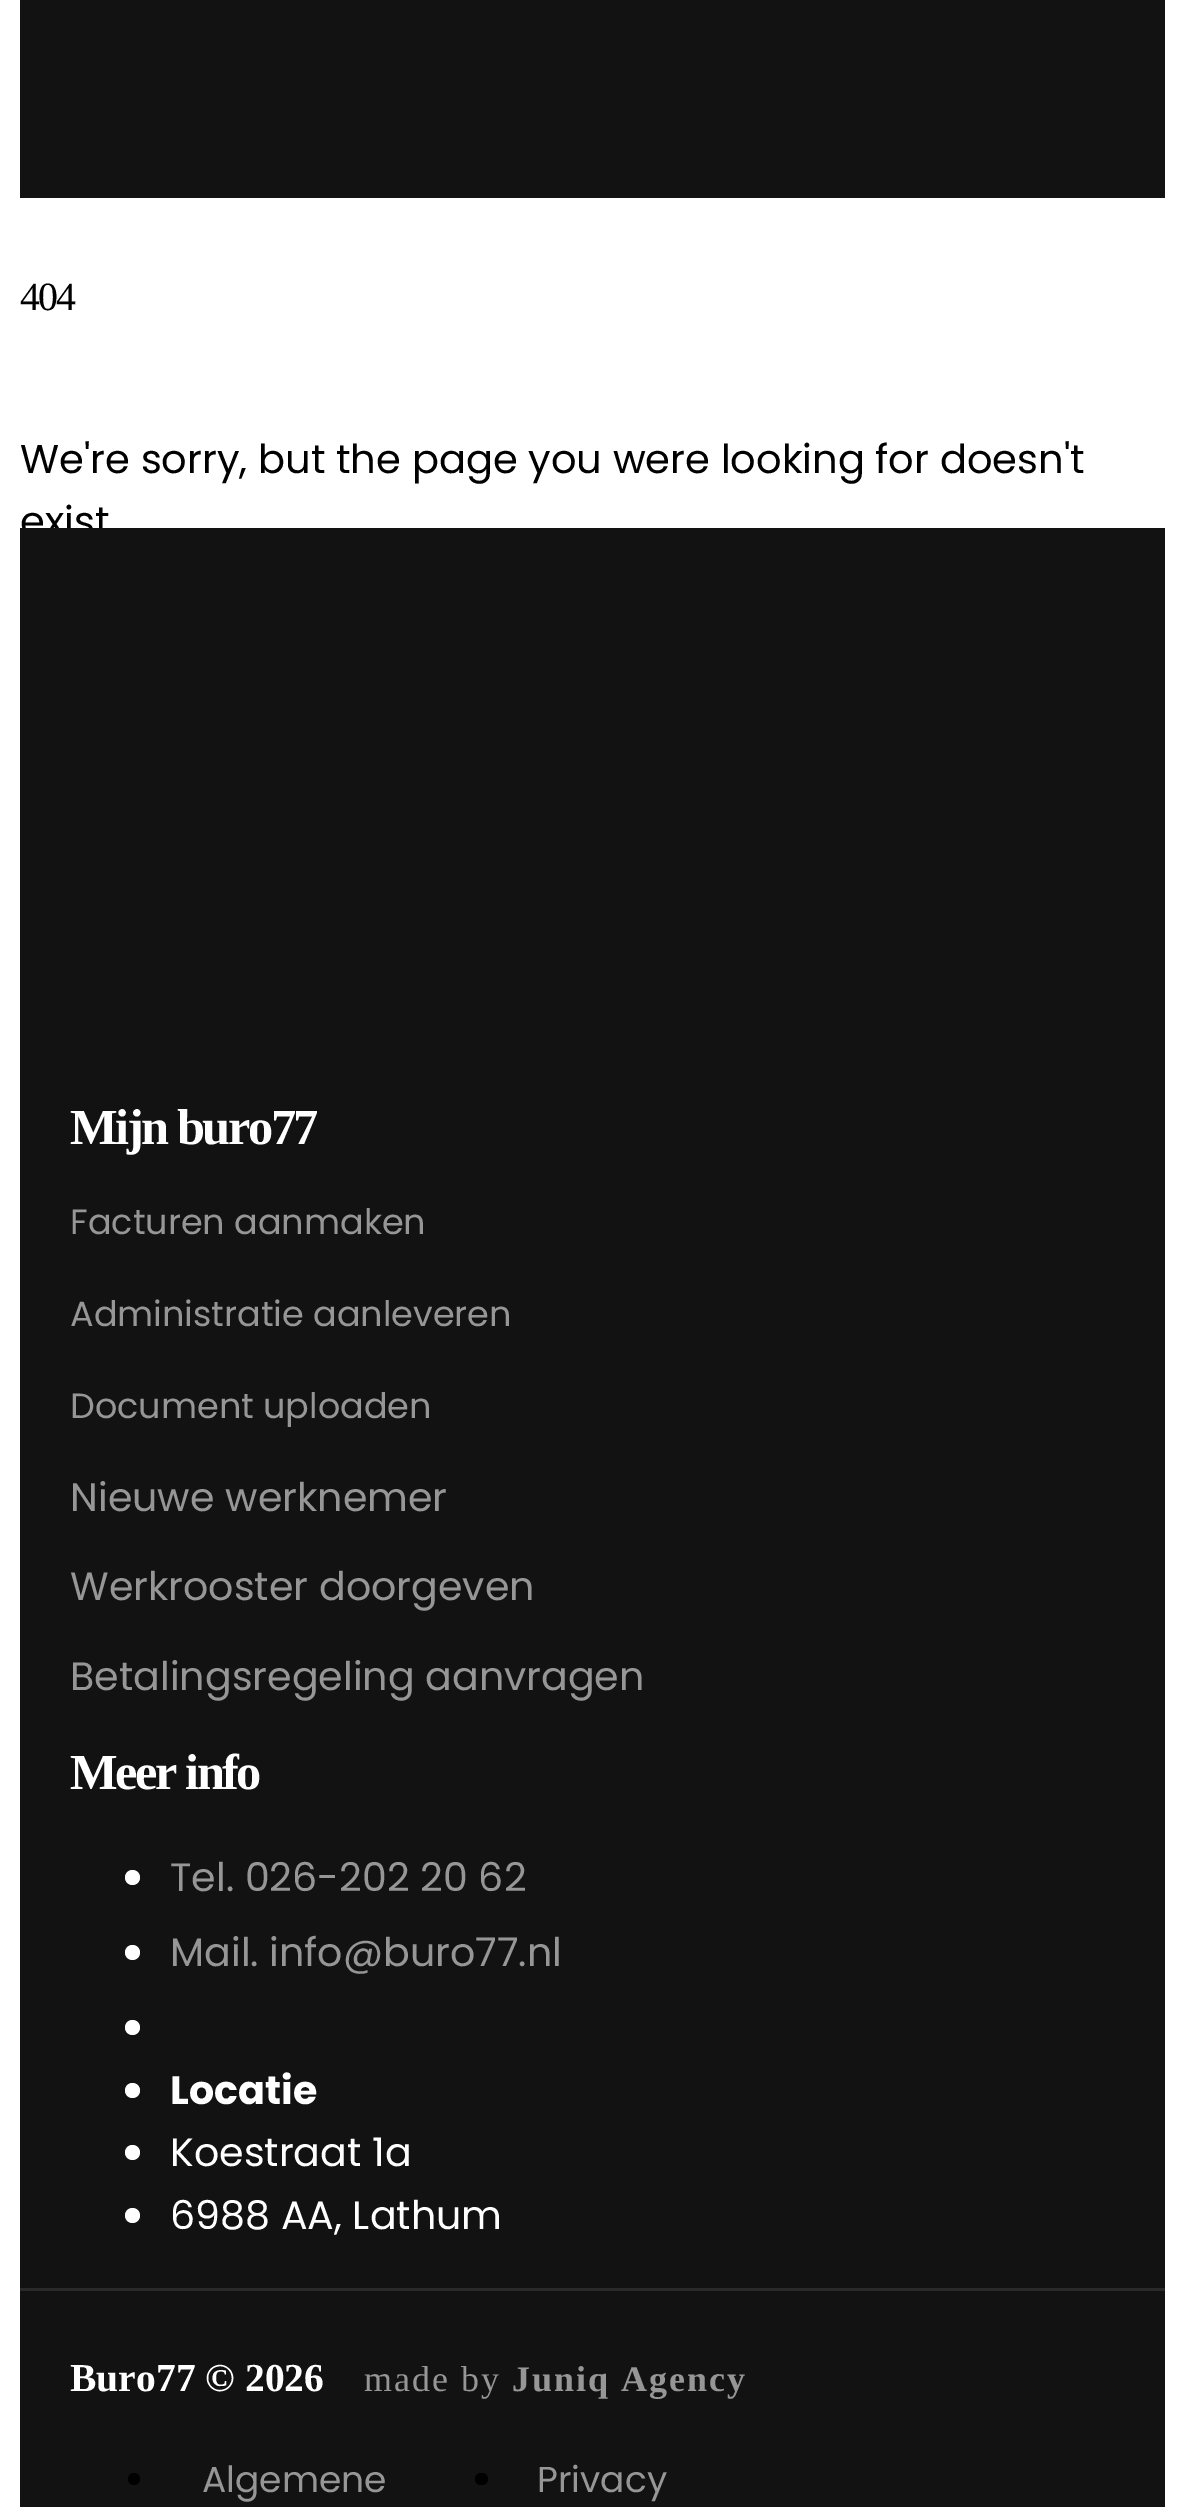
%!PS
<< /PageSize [1183 2507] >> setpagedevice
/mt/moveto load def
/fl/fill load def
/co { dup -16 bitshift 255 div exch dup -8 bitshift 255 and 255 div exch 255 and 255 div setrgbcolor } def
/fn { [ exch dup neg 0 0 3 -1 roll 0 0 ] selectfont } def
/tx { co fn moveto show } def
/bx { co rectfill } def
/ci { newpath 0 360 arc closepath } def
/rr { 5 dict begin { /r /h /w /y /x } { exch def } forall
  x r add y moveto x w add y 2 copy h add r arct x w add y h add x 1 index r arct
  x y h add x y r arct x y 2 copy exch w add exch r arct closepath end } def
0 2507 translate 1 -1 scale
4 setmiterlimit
0 0 1183 2507 16#FFFFFF bx
20 0 1145 198 16#121212 bx
/LiberationSerif-Regular 40 fn
16#000000 co
20 310 mt -2 0 (404) ashow
(We're sorry, but the page you were looking for doesn't) 20 473 /Poppins-Regular 40 16#000000 tx
(exist) 20 535 /Poppins-Regular 40 16#000000 tx
20 528 1145 1979 16#121212 bx
/LiberationSerif-Bold 50.5 fn
16#FFFFFF co
70 1144 mt -2.5 0 (Mijn buro77) ashow
(Facturen aanmaken) 70 1234 /Poppins-Regular 35 16#969696 tx
(Administratie aanleveren) 70 1326 /Poppins-Regular 35 16#969696 tx
(Document uploaden) 70 1418 /Poppins-Regular 35 16#969696 tx
(Nieuwe werknemer) 70 1511 /Poppins-Regular 39.6 16#969696 tx
(Werkrooster doorgeven) 70 1600 /Poppins-Regular 39.6 16#969696 tx
(Betalingsregeling aanvragen) 70 1690 /Poppins-Regular 39.6 16#969696 tx
/LiberationSerif-Bold 50.5 fn
16#FFFFFF co
70 1789 mt -2.5 0 (Meer info) ashow
132.5 1877.5 7.5 ci fl
(Tel. 026-202 20 62) 170 1891 /Poppins-Regular 39.6 16#969696 tx
16#FFFFFF co
132.5 1952.5 7.5 ci fl
(Mail. info@buro77.nl) 170 1966 /Poppins-Regular 39.6 16#969696 tx
16#FFFFFF co
132.5 2027.5 7.5 ci fl
132.5 2090.5 7.5 ci fl
(Locatie) 170 2104 /Poppins-Bold 39.6 16#FFFFFF tx
132.5 2152.5 7.5 ci fl
(Koestraat 1a) 170 2166 /Poppins-Regular 39.6 16#FFFFFF tx
132.5 2215.5 7.5 ci fl
(6988 AA, Lathum) 170 2229 /Poppins-Regular 39.6 16#FFFFFF tx
20 2288 1145 3 16#2A2A2A bx
(Buro77 © 2026) 70 2391 /LiberationSerif-Bold 39.6 16#FFFFFF tx
/LiberationSerif-Regular 36 fn
16#969696 co
364 2391 mt 2 0 (made by) ashow
/LiberationSerif-Bold 36 fn
512 2391 mt 2 0 (Juniq Agency) ashow
16#000000 co
134 2479 6 ci fl
(Algemene) 202 2492 /Poppins-Regular 36 16#969696 tx
16#000000 co
475 2473 13 12 6 rr fl
(Privacy) 537 2492 /Poppins-Regular 36 16#969696 tx
showpage
